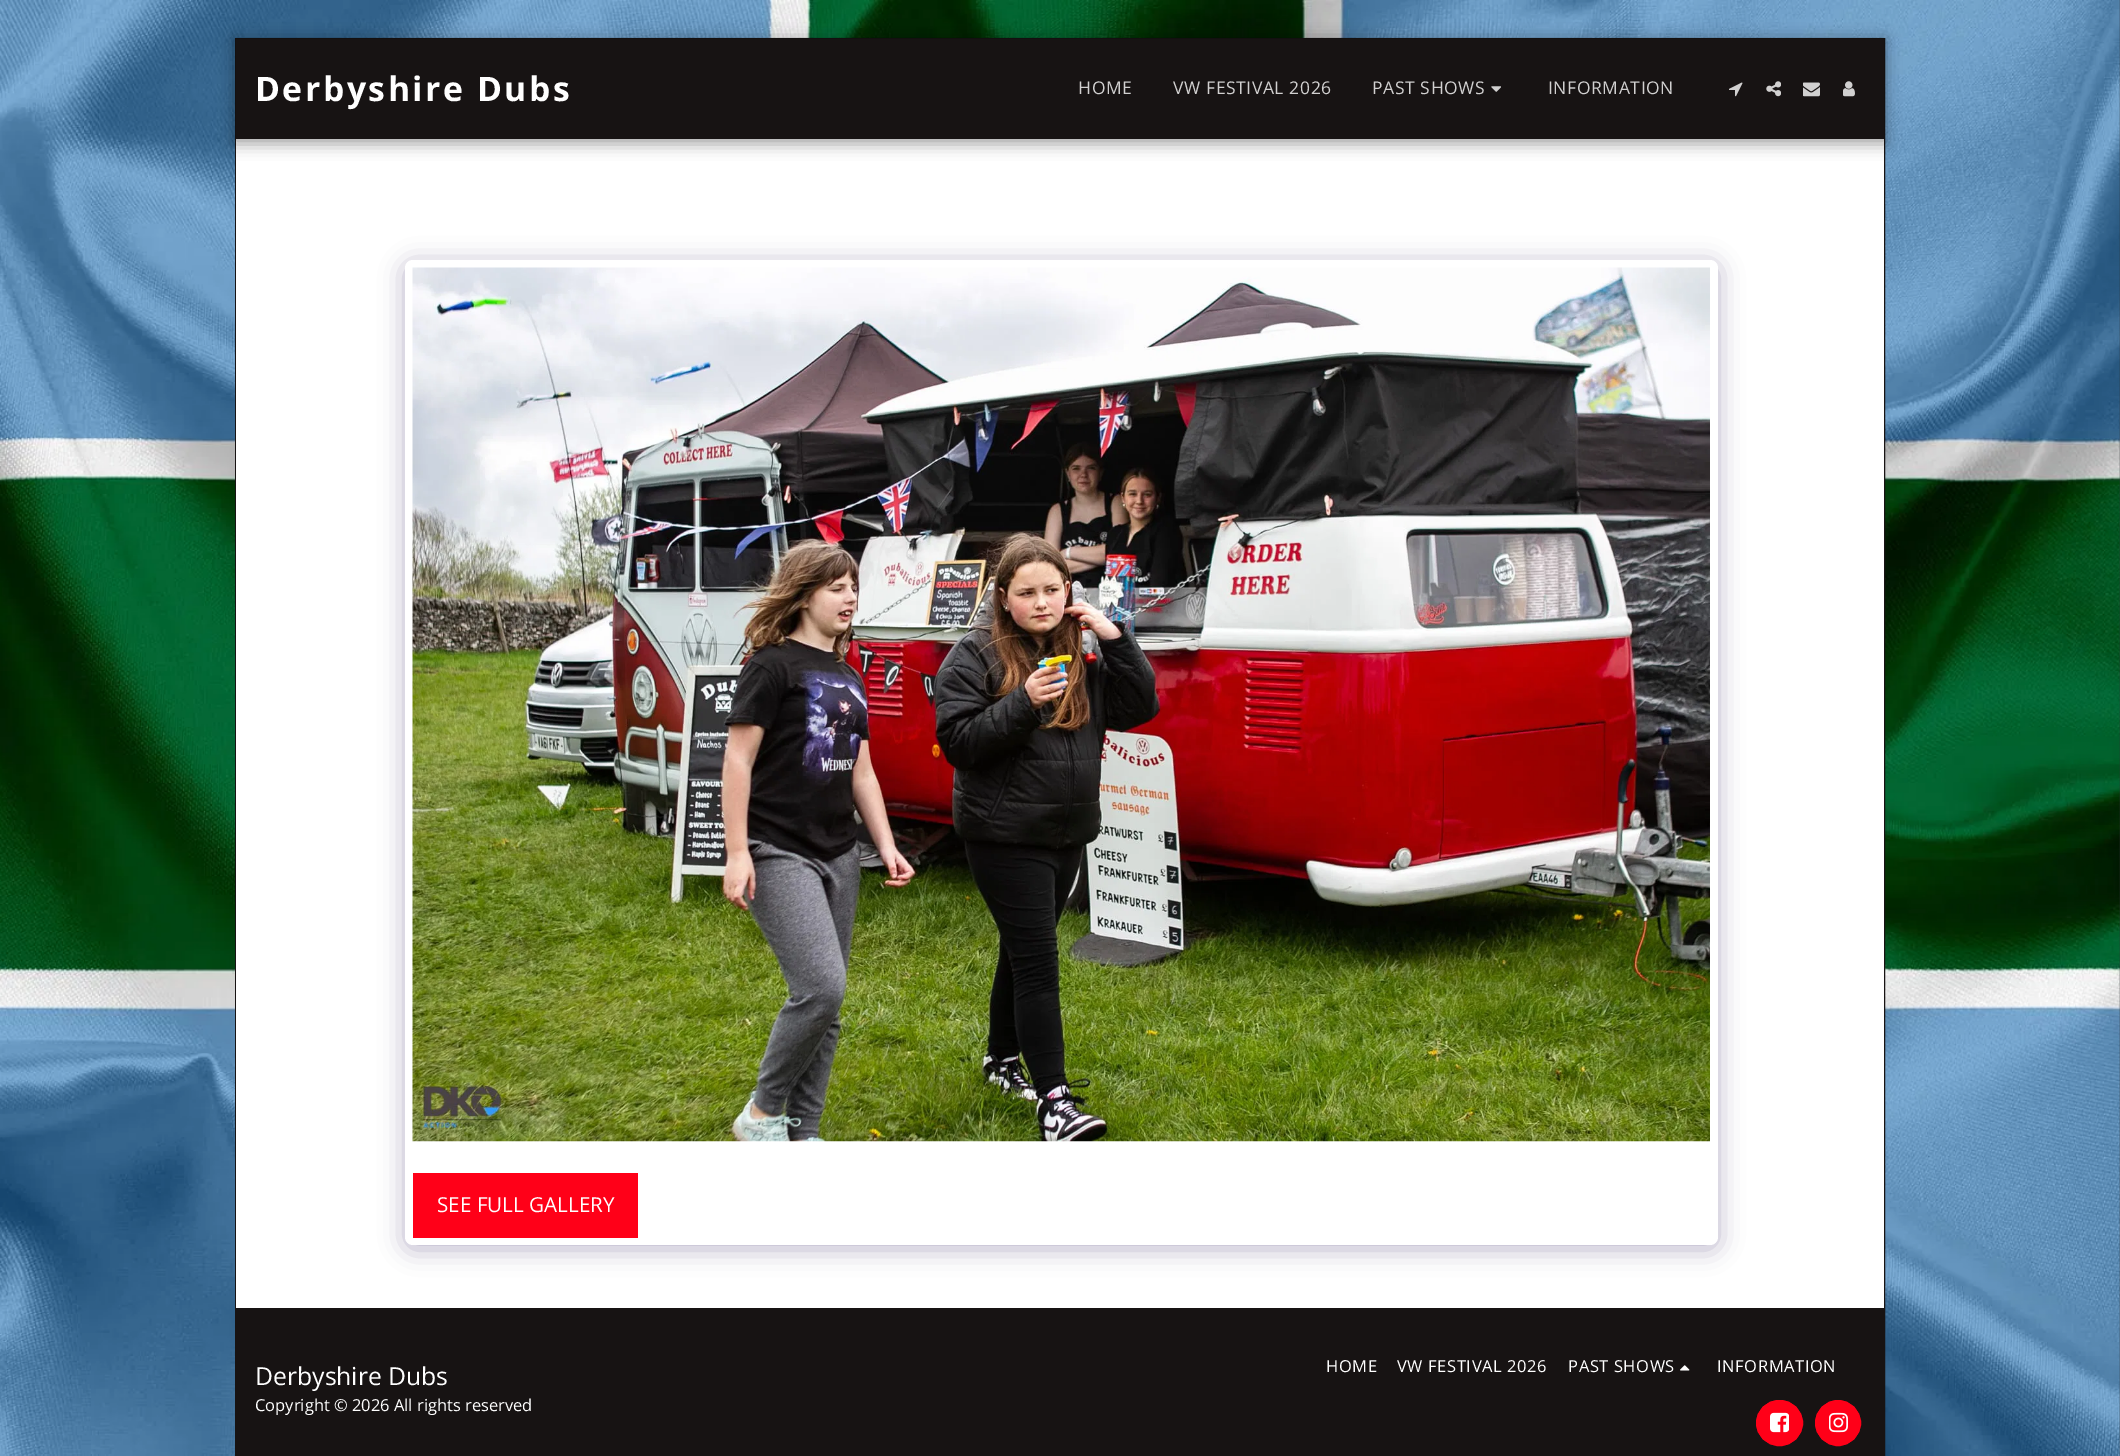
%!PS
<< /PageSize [2120 1456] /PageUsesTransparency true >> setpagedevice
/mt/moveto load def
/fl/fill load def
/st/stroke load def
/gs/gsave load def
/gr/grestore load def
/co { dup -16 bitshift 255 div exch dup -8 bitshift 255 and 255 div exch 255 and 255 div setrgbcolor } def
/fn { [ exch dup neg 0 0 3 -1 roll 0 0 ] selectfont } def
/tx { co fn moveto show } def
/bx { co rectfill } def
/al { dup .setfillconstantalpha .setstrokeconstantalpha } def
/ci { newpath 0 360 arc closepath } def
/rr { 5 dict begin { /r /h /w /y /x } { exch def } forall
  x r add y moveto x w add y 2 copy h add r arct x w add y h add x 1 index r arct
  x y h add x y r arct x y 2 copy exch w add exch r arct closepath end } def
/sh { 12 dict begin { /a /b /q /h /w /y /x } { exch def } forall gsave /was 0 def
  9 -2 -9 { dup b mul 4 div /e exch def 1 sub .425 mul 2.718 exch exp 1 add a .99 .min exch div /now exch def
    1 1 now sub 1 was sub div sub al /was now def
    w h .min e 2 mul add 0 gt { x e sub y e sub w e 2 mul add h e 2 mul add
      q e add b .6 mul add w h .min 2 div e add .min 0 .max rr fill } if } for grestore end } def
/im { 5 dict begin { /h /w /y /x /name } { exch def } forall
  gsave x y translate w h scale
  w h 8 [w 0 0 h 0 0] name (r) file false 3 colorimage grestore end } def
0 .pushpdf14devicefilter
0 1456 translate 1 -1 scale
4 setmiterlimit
0 0 2120 1456 16#FFFFFF bx
(media/1.raw) 0 0 2120 1456 im
16#171313 co
235.5 38.5 1649 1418 rectstroke
236 139 1648 1169 16#FFFFFF bx
16#000000 co
234 39 1652 105 0 7.5 .35 sh
236 39 1648 100 16#171313 bx
(media/2.raw) 1491 86 10 6 im
(media/3.raw) 1729 82 14 15 im
(media/4.raw) 1766 81 15 16 im
(media/5.raw) 1803 82 17 15 im
(media/6.raw) 1843 81 12 16 im
16#4D3F7A co
405 264 1313 985 8 12.5 .4 sh
16#FFFFFF co
405 260 1313 985 8 rr fl
(media/7.raw) 412 267 1298 875 im
413 1173 225 65 16#FF0018 bx
236 1308 1648 148 16#171313 bx
(media/8.raw) 1680 1365 10 6 im
16#FF0018 co
1756.5 1400.5 46 45 22.5 rr gs fl gr
st
(media/9.raw) 1770 1412 19 21 im
1838 1423 22.5 ci gs fl gr
st
(media/10.raw) 1829 1412 19 21 im
/OpenSans-Bold 33.75 fn
16#FFFFFF co
255 101 mt 2.5 0 (Derbyshire Dubs) ashow
/OpenSans-Regular 17.5 fn
16#D1D0D0 co
1078 94 mt .6 0 (HOME) ashow
1173 94 mt .6 0 (VW FESTIVAL 2026) ashow
1372 94 mt .6 0 (PAST SHOWS) ashow
1548 94 mt .6 0 (INFORMATION) ashow
(SEE FULL GALLERY) 437 1212 /OpenSans-Regular 20.6 16#FFFFFF tx
(Derbyshire Dubs) 255 1385 /OpenSans-Regular 24.75 16#FFFFFF tx
(Copyright © 2026 All rights reserved) 255 1411 /OpenSans-Regular 16.5 16#FFFFFF tx
1326 1372 mt .6 0 (HOME) ashow
1397 1372 mt .6 0 (VW FESTIVAL 2026) ashow
1568 1372 mt .6 0 (PAST SHOWS) ashow
1717 1372 mt .6 0 (INFORMATION) ashow
.poppdf14devicefilter showpage
